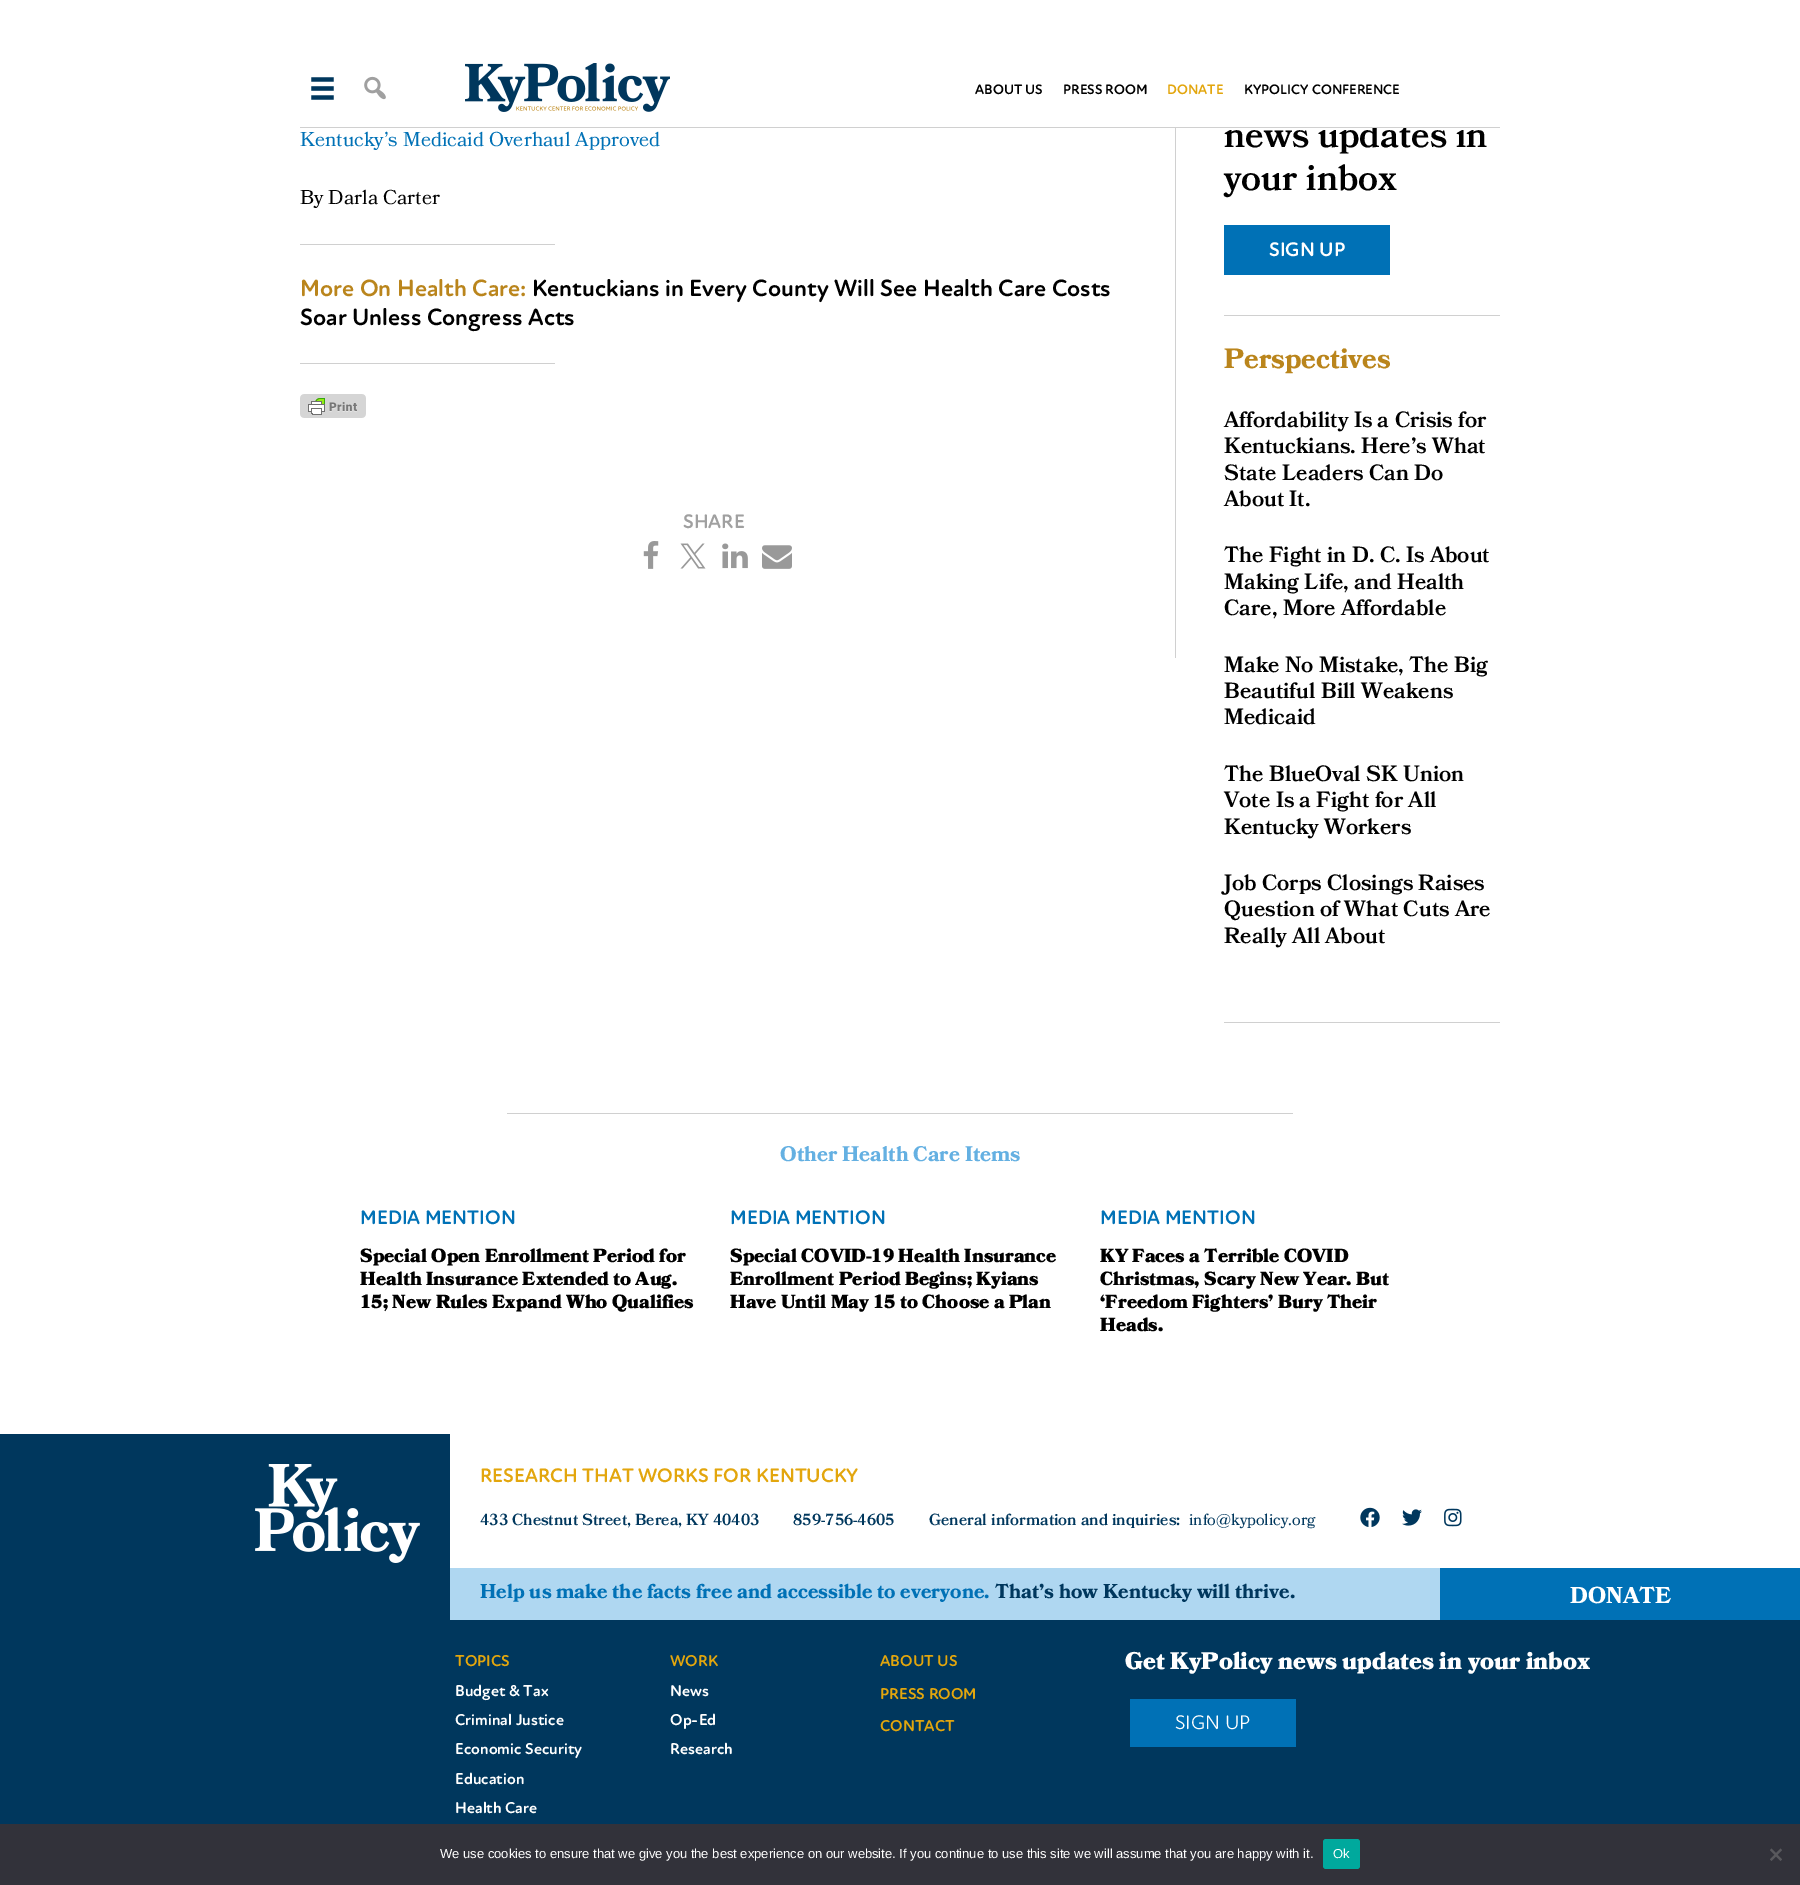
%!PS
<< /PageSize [1800 1885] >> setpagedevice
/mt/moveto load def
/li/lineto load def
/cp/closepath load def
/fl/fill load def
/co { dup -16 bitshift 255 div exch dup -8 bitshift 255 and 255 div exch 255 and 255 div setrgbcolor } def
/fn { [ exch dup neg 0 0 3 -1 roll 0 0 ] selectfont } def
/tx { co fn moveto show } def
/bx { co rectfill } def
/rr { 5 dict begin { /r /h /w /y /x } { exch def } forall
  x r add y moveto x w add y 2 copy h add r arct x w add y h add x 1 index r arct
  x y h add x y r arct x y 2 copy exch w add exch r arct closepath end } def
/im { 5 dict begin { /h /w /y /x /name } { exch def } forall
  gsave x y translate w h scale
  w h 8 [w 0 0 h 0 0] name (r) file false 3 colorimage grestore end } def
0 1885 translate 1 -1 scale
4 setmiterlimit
0 0 1800 1885 16#FFFFFF bx
(media/1.raw) 311 77 23 23 im
(media/2.raw) 364 76 22 24 im
(media/3.raw) 465 63 205 49 im
1175 128 1 530 16#D0D0D0 bx
300 244 255 1 16#D0D0D0 bx
300 363 255 1 16#D0D0D0 bx
(media/4.raw) 300 394 66 24 im
(media/5.raw) 643 541 16 28 im
(media/6.raw) 680 543 26 26 im
(media/7.raw) 722 543 26 26 im
(media/8.raw) 762 545 30 24 im
1224 315 276 1 16#D0D0D0 bx
1224 225 166 50 16#0071B6 bx
1224 1022 276 1 16#D0D0D0 bx
507 1113 786 1 16#D0D0D0 bx
0 1434 1800 390 16#00375D bx
(media/9.raw) 255 1464 165 99 im
450 1434 1350 134 16#FFFFFF bx
(media/10.raw) 1360 1507 20 20 im
(media/11.raw) 1402 1509 20 17 im
(media/12.raw) 1444 1508 18 19 im
450 1568 990 52 16#AFD7F1 bx
1440 1568 360 52 16#0071B6 bx
1130 1699 166 48 16#0071B6 bx
0 1824 1800 61 16#32323A bx
16#00A99D co
1323 1839 37 30 3 rr fl
16#59595D co
1780.5 1848.5 mt 1782 1850 li 1771.5 1861 li 1770 1859.5 li cp fl
1770 1850 mt 1771.5 1848.5 li 1782 1859.5 li 1780.5 1861 li cp fl
(ABOUT US) 975 94 /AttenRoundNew-Bold 14 16#000000 tx
(PRESS ROOM) 1063 94 /AttenRoundNew-Bold 14 16#000000 tx
(DONATE) 1167 94 /AttenRoundNew-Bold 14 16#E3A60D tx
(KYPOLICY CONFERENCE) 1244 94 /AttenRoundNew-Bold 14 16#000000 tx
(Kentucky’s Medicaid Overhaul Approved) 300 146 /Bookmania-Regular 20 16#0071B6 tx
(By Darla Carter) 300 204 /Bookmania-Regular 20 16#000000 tx
(More On Health Care:) 300 296 /AttenRoundNew-Bold 24 16#BA851C tx
(Kentuckians in Every County Will See Health Care Costs) 532 296 /AttenRoundNew-Bold 24 16#000000 tx
(Soar Unless Congress Acts) 300 325 /AttenRoundNew-Bold 24 16#000000 tx
(SHARE) 683 528 /AttenRoundNew-Bold 20 16#A0A0A0 tx
(news updates in) 1224 147 /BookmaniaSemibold-SemiBold 36 16#000000 tx
1370 121 94 7 16#FFFFFF bx
300 127 1200 1 16#D0D0D0 bx
(your inbox) 1224 190 /BookmaniaSemibold-SemiBold 36 16#000000 tx
(SIGN UP) 1269 256 /AttenRoundNew-Bold 20 16#FFFFFF tx
(Perspectives) 1224 368 /Bookmania-Bold 28 16#BA851C tx
(Affordability Is a Crisis for) 1224 427 /BookmaniaSemibold-SemiBold 22 16#000000 tx
(Kentuckians. Here’s What) 1224 453 /BookmaniaSemibold-SemiBold 22 16#000000 tx
(State Leaders Can Do) 1224 480 /BookmaniaSemibold-SemiBold 22 16#000000 tx
(About It.) 1224 506 /BookmaniaSemibold-SemiBold 22 16#000000 tx
(The Fight in D. C. Is About) 1224 562 /BookmaniaSemibold-SemiBold 22 16#000000 tx
(Making Life, and Health) 1224 589 /BookmaniaSemibold-SemiBold 22 16#000000 tx
(Care, More Affordable) 1224 615 /BookmaniaSemibold-SemiBold 22 16#000000 tx
(Make No Mistake, The Big) 1224 672 /BookmaniaSemibold-SemiBold 22 16#000000 tx
(Beautiful Bill Weakens) 1224 698 /BookmaniaSemibold-SemiBold 22 16#000000 tx
(Medicaid) 1224 724 /BookmaniaSemibold-SemiBold 22 16#000000 tx
(The BlueOval SK Union) 1224 781 /BookmaniaSemibold-SemiBold 22 16#000000 tx
(Vote Is a Fight for All) 1224 807 /BookmaniaSemibold-SemiBold 22 16#000000 tx
(Kentucky Workers) 1224 834 /BookmaniaSemibold-SemiBold 22 16#000000 tx
(Job Corps Closings Raises) 1224 890 /BookmaniaSemibold-SemiBold 22 16#000000 tx
(Question of What Cuts Are) 1224 916 /BookmaniaSemibold-SemiBold 22 16#000000 tx
(Really All About) 1224 943 /BookmaniaSemibold-SemiBold 22 16#000000 tx
(Other Health Care Items) 780 1161 /Bookmania-Bold 21 16#64B0E2 tx
(MEDIA MENTION) 360 1224 /AttenRoundNew-Bold 20 16#0071B6 tx
(Special Open Enrollment Period for) 360 1262 /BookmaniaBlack-Black 19 16#000000 tx
(Health Insurance Extended to Aug.) 360 1285 /BookmaniaBlack-Black 19 16#000000 tx
(15; New Rules Expand Who Qualifies) 360 1308 /BookmaniaBlack-Black 19 16#000000 tx
(MEDIA MENTION) 730 1224 /AttenRoundNew-Bold 20 16#0071B6 tx
(Special COVID-19 Health Insurance) 730 1262 /BookmaniaBlack-Black 19 16#000000 tx
(Enrollment Period Begins; Kyians) 730 1285 /BookmaniaBlack-Black 19 16#000000 tx
(Have Until May 15 to Choose a Plan) 730 1308 /BookmaniaBlack-Black 19 16#000000 tx
(MEDIA MENTION) 1100 1224 /AttenRoundNew-Bold 20 16#0071B6 tx
(KY Faces a Terrible COVID) 1100 1262 /BookmaniaBlack-Black 19 16#000000 tx
(Christmas, Scary New Year. But) 1100 1285 /BookmaniaBlack-Black 19 16#000000 tx
(‘Freedom Fighters’ Bury Their) 1100 1308 /BookmaniaBlack-Black 19 16#000000 tx
(Heads.) 1100 1331 /BookmaniaBlack-Black 19 16#000000 tx
(RESEARCH THAT WORKS FOR KENTUCKY) 480 1482 /AttenRoundNew-Bold 20 16#E3A60D tx
(433 Chestnut Street, Berea, KY 40403) 480 1525 /BookmaniaSemibold-SemiBold 16 16#00375D tx
(859-756-4605) 793 1525 /BookmaniaSemibold-SemiBold 16 16#00375D tx
(General information and inquiries:) 929 1525 /BookmaniaSemibold-SemiBold 16 16#00375D tx
(info@kypolicy.org) 1189 1525 /Bookmania-Regular 16 16#00375D tx
(Help us make the facts free and accessible to everyone.) 480 1598 /Bookmania-Bold 20 16#0071B6 tx
(That’s how Kentucky will thrive.) 995 1598 /Bookmania-Bold 20 16#00375D tx
(DONATE) 1570 1603 /Bookmania-Bold 23 16#FFFFFF tx
(TOPICS) 455 1666 /AttenRoundNew-Bold 16 16#E3A60D tx
(Budget & Tax) 455 1696 /AttenRoundNew-Bold 16 16#FFFFFF tx
(Criminal Justice) 455 1725 /AttenRoundNew-Bold 16 16#FFFFFF tx
(Economic Security) 455 1754 /AttenRoundNew-Bold 16 16#FFFFFF tx
(Education) 455 1784 /AttenRoundNew-Bold 16 16#FFFFFF tx
(Health Care) 455 1813 /AttenRoundNew-Bold 16 16#FFFFFF tx
(WORK) 670 1666 /AttenRoundNew-Bold 16 16#E3A60D tx
(News) 670 1696 /AttenRoundNew-Bold 16 16#FFFFFF tx
(Op-Ed) 670 1725 /AttenRoundNew-Bold 16 16#FFFFFF tx
(Research) 670 1754 /AttenRoundNew-Bold 16 16#FFFFFF tx
(ABOUT US) 880 1666 /AttenRoundNew-Bold 16 16#E3A60D tx
(PRESS ROOM) 880 1699 /AttenRoundNew-Bold 16 16#E3A60D tx
(CONTACT) 880 1731 /AttenRoundNew-Bold 16 16#E3A60D tx
(Get KyPolicy news updates in your inbox) 1125 1669 /BookmaniaBlack-Black 24 16#FFFFFF tx
(SIGN UP) 1175 1729 /AttenRoundNew-Regular 20 16#FFFFFF tx
(We use cookies to ensure that we give you the best experience on our website. If you continue to use this site we will assume that you are happy with it.) 440 1858 /LiberationSans-Regular 13 16#FFFFFF tx
(Ok) 1333 1858 /LiberationSans-Regular 13 16#FFFFFF tx
showpage
